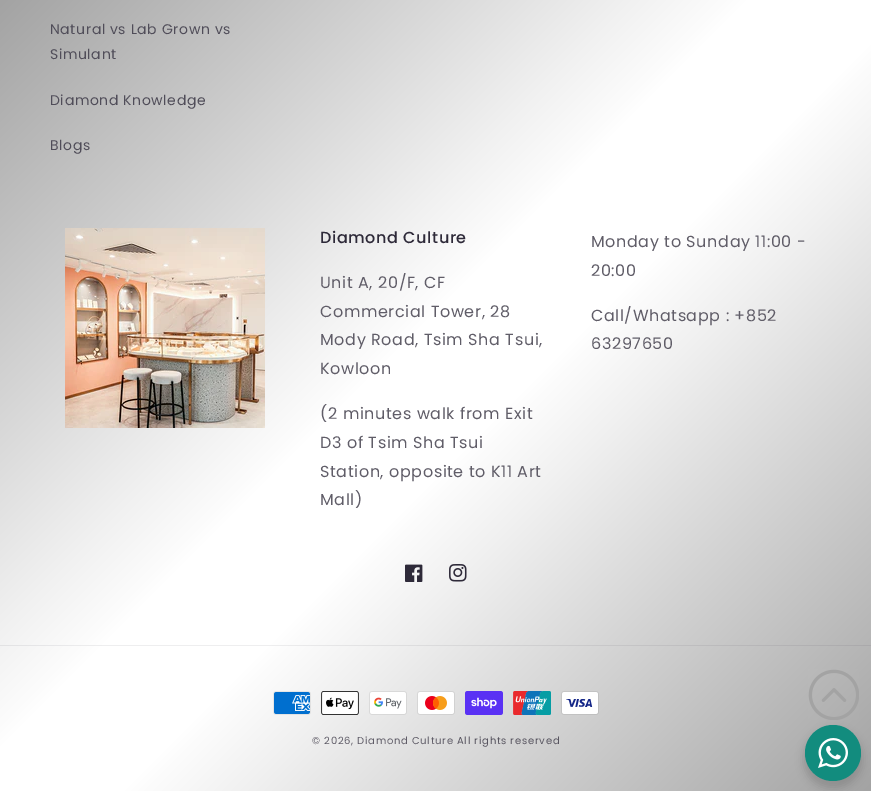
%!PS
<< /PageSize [871 791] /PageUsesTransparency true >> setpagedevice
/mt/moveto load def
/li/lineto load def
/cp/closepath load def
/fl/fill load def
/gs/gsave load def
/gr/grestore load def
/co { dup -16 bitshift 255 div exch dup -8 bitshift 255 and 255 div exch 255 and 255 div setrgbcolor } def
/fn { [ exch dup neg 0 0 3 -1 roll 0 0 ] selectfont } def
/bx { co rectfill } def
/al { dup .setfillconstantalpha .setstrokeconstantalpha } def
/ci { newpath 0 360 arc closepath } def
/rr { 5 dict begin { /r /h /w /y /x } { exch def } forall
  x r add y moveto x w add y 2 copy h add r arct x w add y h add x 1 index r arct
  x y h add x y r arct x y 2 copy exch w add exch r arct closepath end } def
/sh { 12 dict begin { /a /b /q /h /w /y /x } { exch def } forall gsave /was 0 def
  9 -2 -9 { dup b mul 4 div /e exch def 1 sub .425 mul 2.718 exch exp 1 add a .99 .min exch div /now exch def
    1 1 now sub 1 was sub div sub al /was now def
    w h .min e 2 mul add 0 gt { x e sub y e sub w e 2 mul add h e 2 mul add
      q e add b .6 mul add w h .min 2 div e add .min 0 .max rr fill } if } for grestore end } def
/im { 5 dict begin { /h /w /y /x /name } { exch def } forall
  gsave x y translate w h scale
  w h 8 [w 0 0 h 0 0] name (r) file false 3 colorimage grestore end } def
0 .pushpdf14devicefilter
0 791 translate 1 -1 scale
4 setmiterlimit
0 0 871 791 16#FFFFFF bx
gs 0 0 mt 871 0 li 871 791 li 0 791 li cp clip newpath
<< /ShadingType 2 /ColorSpace /DeviceRGB /Coords [20 -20 851 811] /Extend [true true] /Function << /FunctionType 3 /Domain [0 1] /Functions [<< /FunctionType 2 /Domain [0 1] /C0 [.639 .639 .639] /C1 [1 1 1] /N 1 >> << /FunctionType 2 /Domain [0 1] /C0 [1 1 1] /C1 [1 1 1] /N 1 >> << /FunctionType 2 /Domain [0 1] /C0 [1 1 1] /C1 [.639 .639 .639] /N 1 >>] /Bounds [.45 .55] /Encode [0 1 0 1 0 1] >> >> shfill gr
gs 0 645 mt 871 645 li 871 646 li 0 646 li cp clip newpath
<< /ShadingType 2 /ColorSpace /DeviceRGB /Coords [20 -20 851 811] /Extend [true true] /Function << /FunctionType 3 /Domain [0 1] /Functions [<< /FunctionType 2 /Domain [0 1] /C0 [.604 .6 .608] /C1 [.933 .933 .937] /N 1 >> << /FunctionType 2 /Domain [0 1] /C0 [.933 .933 .937] /C1 [.933 .933 .937] /N 1 >> << /FunctionType 2 /Domain [0 1] /C0 [.933 .933 .937] /C1 [.604 .6 .608] /N 1 >>] /Bounds [.45 .55] /Encode [0 1 0 1 0 1] >> >> shfill gr
(media/1.raw) 65 228 200 200 im
(media/2.raw) 405 564 18 18 im
(media/3.raw) 449 564 18 18 im
(media/4.raw) 273 691 38 24 im
(media/5.raw) 321 691 38 24 im
(media/6.raw) 369 691 38 24 im
(media/7.raw) 417 691 38 24 im
(media/8.raw) 465 691 38 24 im
(media/9.raw) 513 691 38 24 im
(media/10.raw) 561 691 38 24 im
(media/11.raw) 808 669 51 51 im
16#000000 co
803 729 60 60 30 4 .14 sh
16#128C7E co
833 753 28 ci fl
(media/12.raw) 818 738 30 30 im
/Poppins-Regular 14 fn
16#504D59 co
50 34 mt .6 0 (Natural vs Lab Grown vs) ashow
50 59 mt .6 0 (Simulant) ashow
50 105 mt .6 0 (Diamond Knowledge) ashow
50 150 mt .6 0 (Blogs) ashow
/Poppins-Medium 16 fn
16#2E2A39 co
320 243 mt .6 0 (Diamond Culture) ashow
/Poppins-Regular 16 fn
16#605D68 co
320 288 mt .6 0 (Unit A, 20/F, CF) ashow
320 317 mt .6 0 (Commercial Tower, 28) ashow
320 345 mt .6 0 (Mody Road, Tsim Sha Tsui,) ashow
320 374 mt .6 0 (Kowloon) ashow
320 419 mt .6 0 (\(2 minutes walk from Exit) ashow
320 448 mt .6 0 (D3 of Tsim Sha Tsui) ashow
320 477 mt .6 0 (Station, opposite to K11 Art) ashow
320 505 mt .6 0 (Mall\)) ashow
591 247 mt .6 0 (Monday to Sunday 11:00 -) ashow
591 276 mt .6 0 (20:00) ashow
591 321 mt .6 0 (Call/Whatsapp : +852) ashow
591 349 mt .6 0 (63297650) ashow
/Poppins-Regular 10 fn
312 744 mt .75 0 (© 2026,) ashow
357 744 mt .75 0 (Diamond Culture) ashow
16#585560 co
457 744 mt .75 0 (All rights reserved) ashow
.poppdf14devicefilter showpage
